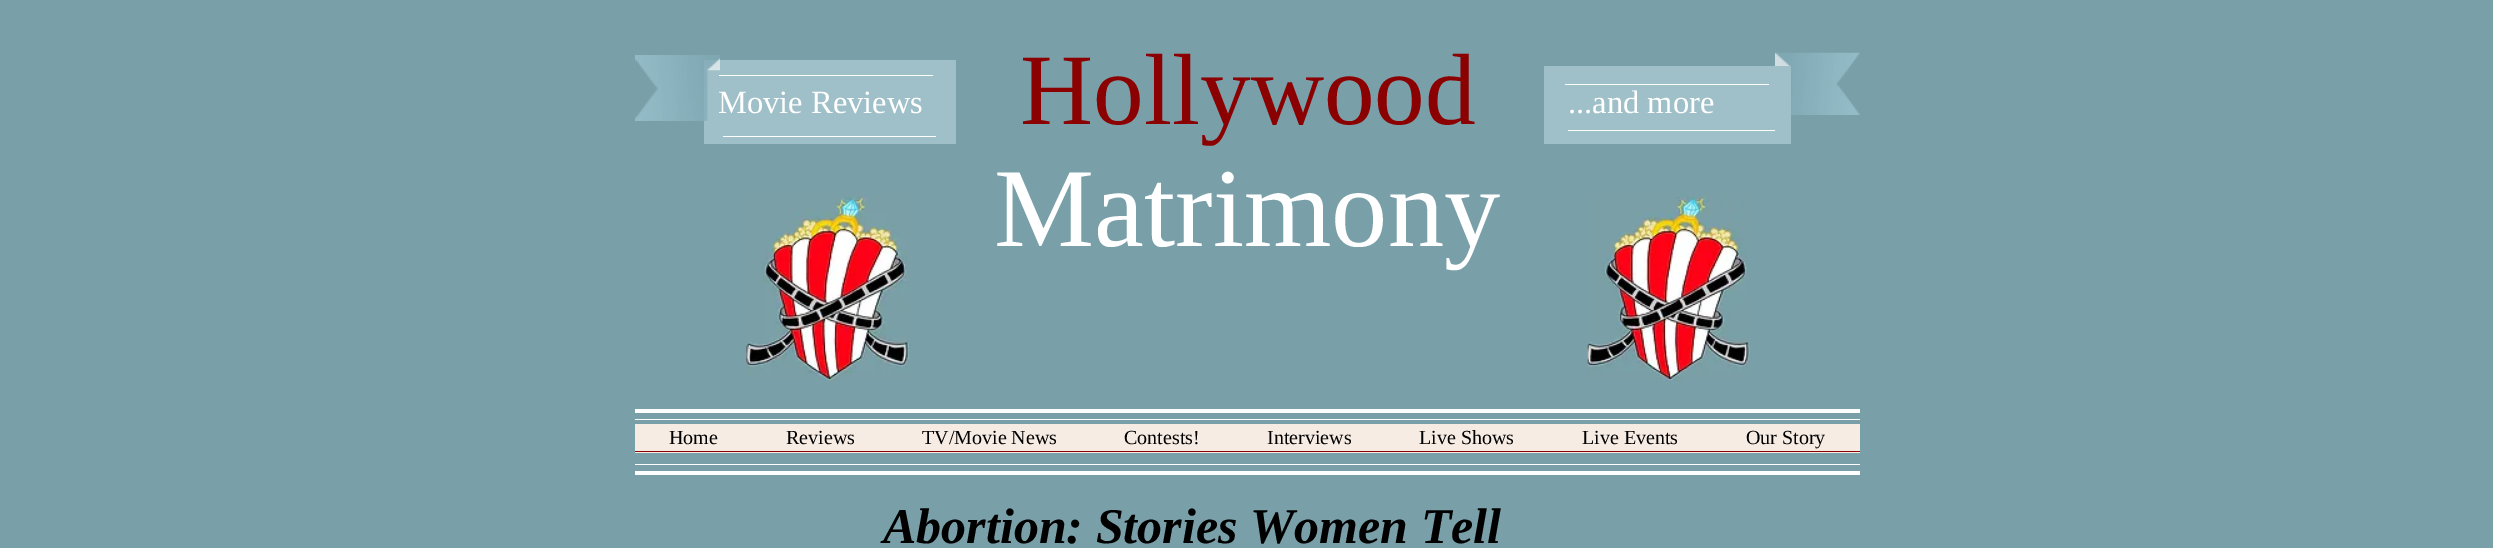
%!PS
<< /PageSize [2493 548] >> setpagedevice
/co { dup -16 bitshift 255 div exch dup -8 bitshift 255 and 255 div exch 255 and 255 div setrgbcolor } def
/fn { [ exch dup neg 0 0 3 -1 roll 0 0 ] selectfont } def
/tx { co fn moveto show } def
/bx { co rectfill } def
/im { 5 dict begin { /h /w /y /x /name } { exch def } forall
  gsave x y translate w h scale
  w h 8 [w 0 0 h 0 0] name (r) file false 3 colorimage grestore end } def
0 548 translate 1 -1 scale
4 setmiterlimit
0 0 2493 548 16#799FA8 bx
704 60 252 84 16#9FC0C8 bx
719 75 214 1 16#FFFFFF bx
723 136 213 1 16#FFFFFF bx
(media/2.raw) 1775 52 85 63 im
1544 66 247 78 16#9FC0C8 bx
1565 84 204 1 16#FFFFFF bx
1568 130 207 1 16#FFFFFF bx
(media/3.raw) 746 193 165 188 im
(media/4.raw) 1587 193 163 188 im
635 409 1225 4 16#FFFFFF bx
635 419 1225 1 16#FFFFFF bx
635 424 1225 29 16#F7ECE4 bx
635 451 1225 1 16#8B0000 bx
635 464 1225 1 16#FFFFFF bx
635 471 1225 4 16#FFFFFF bx
(Movie Reviews) 718 113 /LiberationSerif-Regular 32.5 16#FFFFFF tx
(media/1.raw) 635 55 85 66 im
(Hollywood) 1020 124 /LiberationSerif-Regular 101.25 16#8B0000 tx
(Matrimony) 994 246 /LiberationSerif-Regular 112.5 16#FFFFFF tx
(...and more) 1568 113 /LiberationSerif-Regular 32.5 16#FFFFFF tx
(Home) 669 444 /LiberationSerif-Regular 20 16#000000 tx
(Reviews) 786 444 /LiberationSerif-Regular 20 16#000000 tx
(TV/Movie News) 922 444 /LiberationSerif-Regular 20 16#000000 tx
(Contests!) 1124 444 /LiberationSerif-Regular 20 16#000000 tx
(Interviews) 1267 444 /LiberationSerif-Regular 20 16#000000 tx
(Live Shows) 1419 444 /LiberationSerif-Regular 20 16#000000 tx
(Live Events) 1582 444 /LiberationSerif-Regular 20 16#000000 tx
(Our Story) 1746 444 /LiberationSerif-Regular 20 16#000000 tx
(Abortion: Stories Women Tell) 883 543 /LiberationSerif-BoldItalic 50 16#000000 tx
showpage
